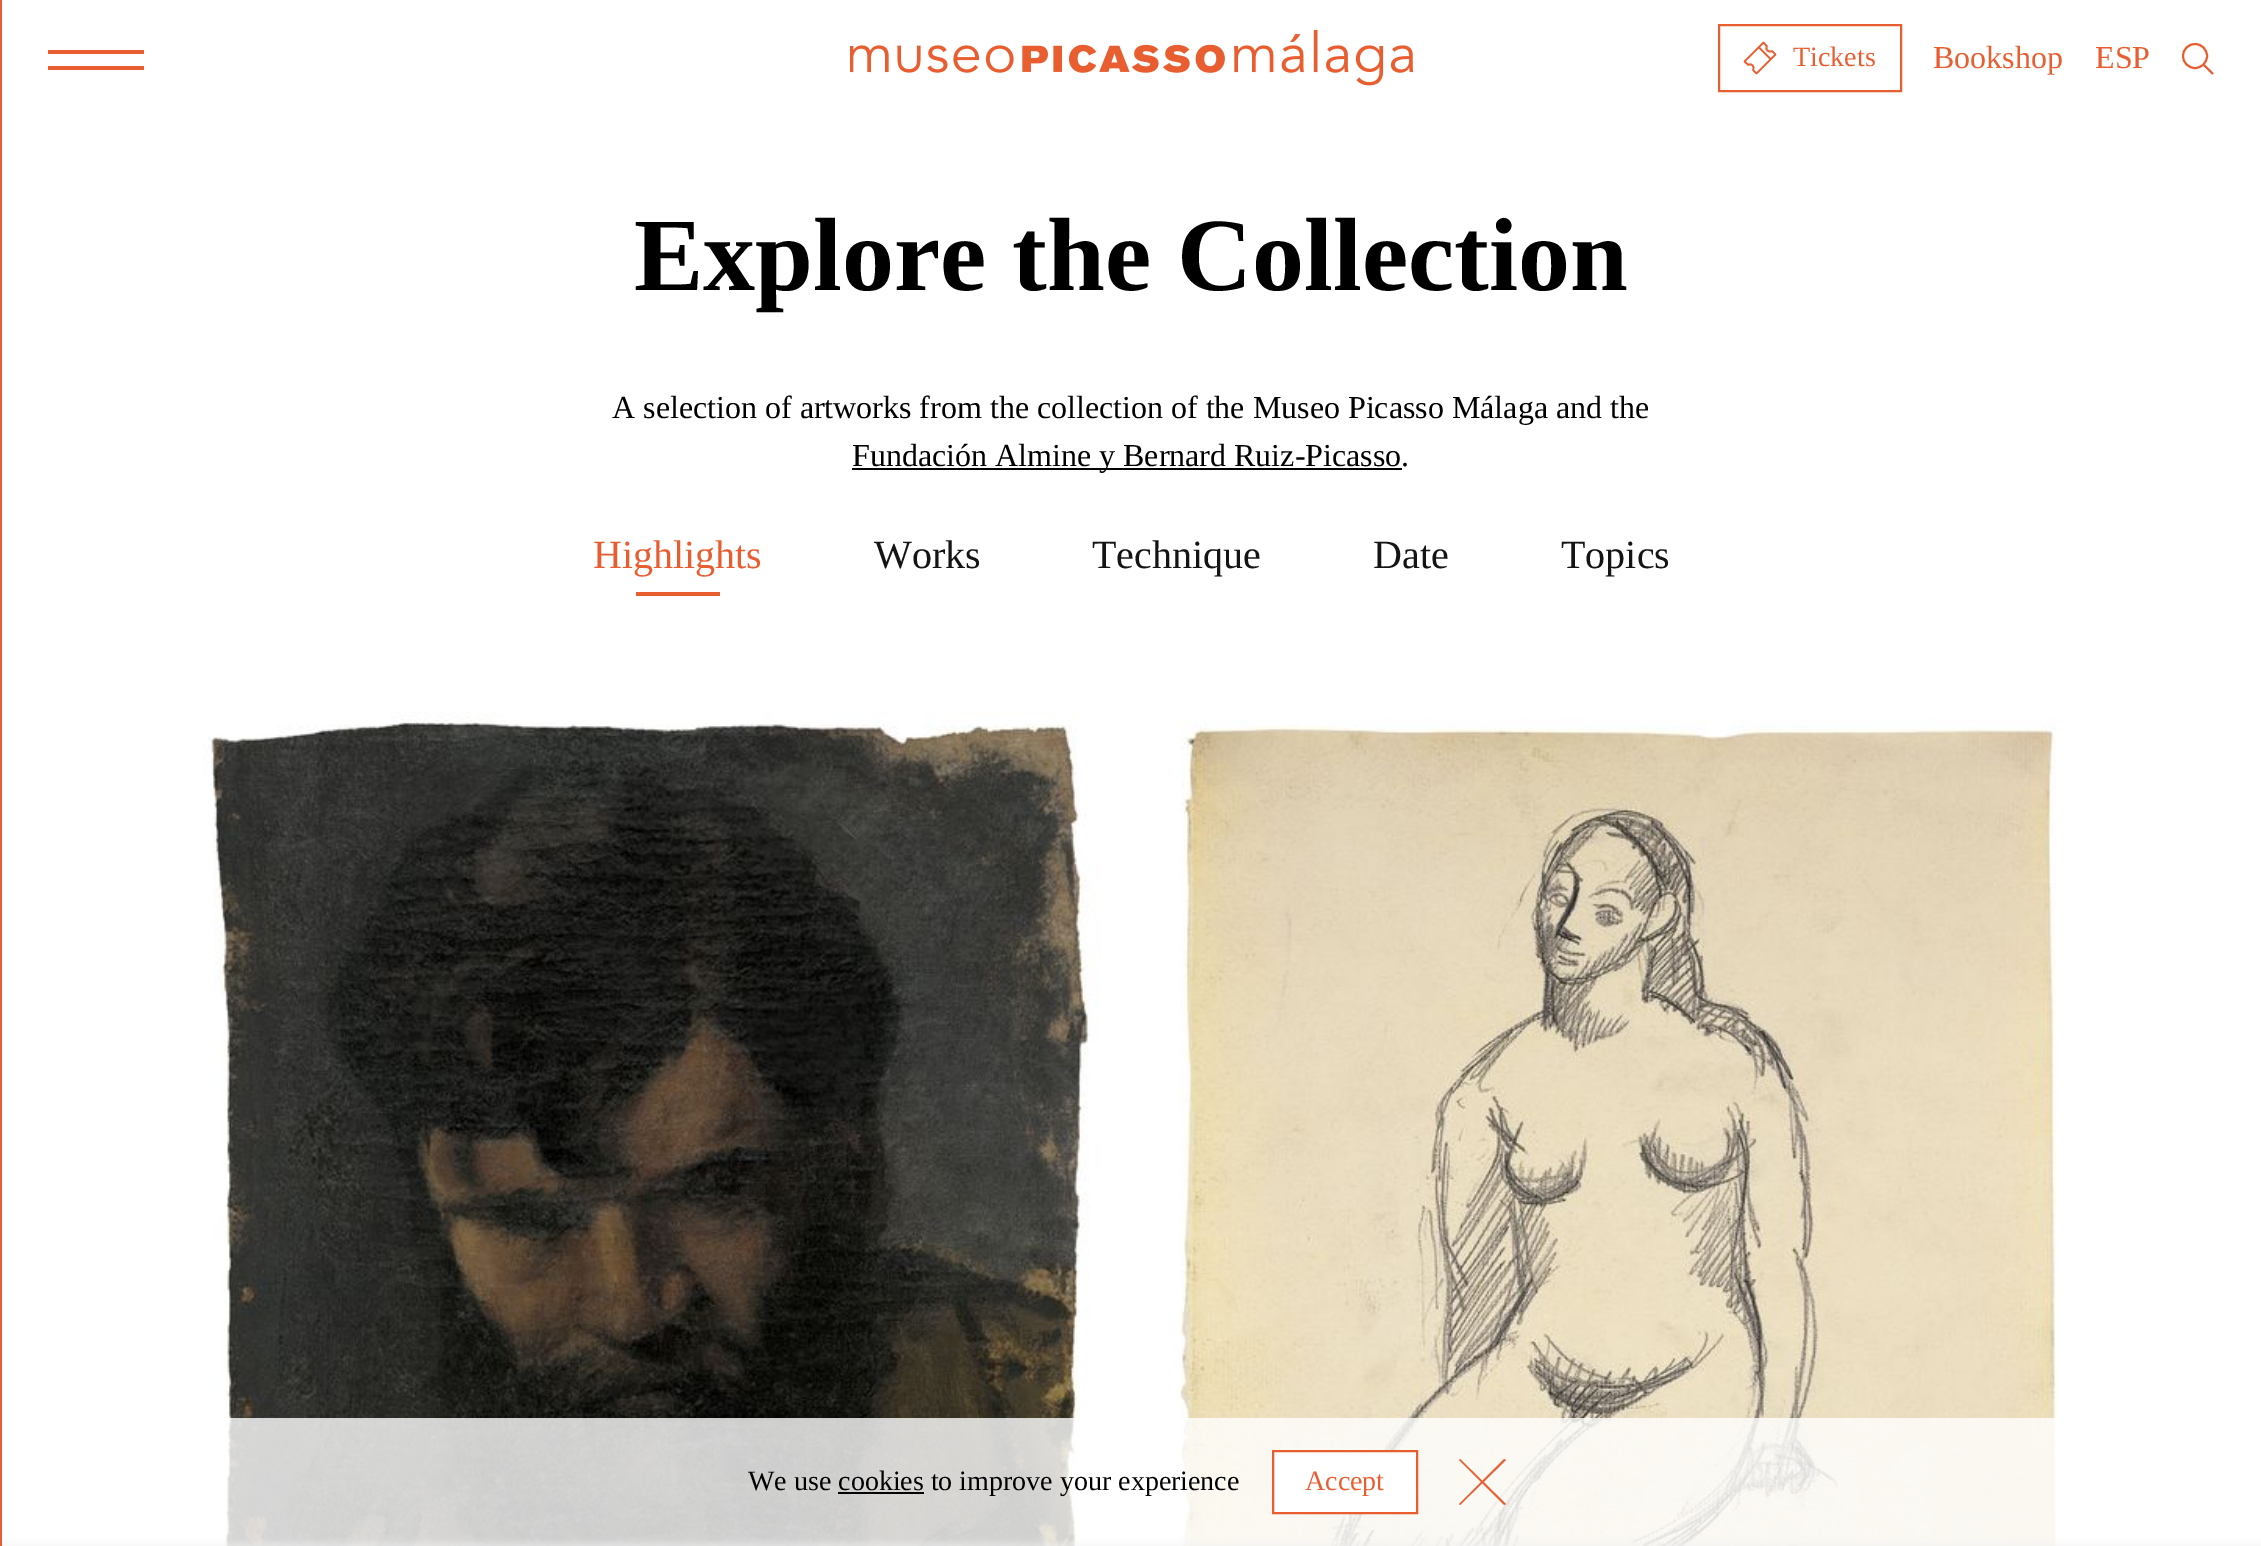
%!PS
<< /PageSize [2261 1546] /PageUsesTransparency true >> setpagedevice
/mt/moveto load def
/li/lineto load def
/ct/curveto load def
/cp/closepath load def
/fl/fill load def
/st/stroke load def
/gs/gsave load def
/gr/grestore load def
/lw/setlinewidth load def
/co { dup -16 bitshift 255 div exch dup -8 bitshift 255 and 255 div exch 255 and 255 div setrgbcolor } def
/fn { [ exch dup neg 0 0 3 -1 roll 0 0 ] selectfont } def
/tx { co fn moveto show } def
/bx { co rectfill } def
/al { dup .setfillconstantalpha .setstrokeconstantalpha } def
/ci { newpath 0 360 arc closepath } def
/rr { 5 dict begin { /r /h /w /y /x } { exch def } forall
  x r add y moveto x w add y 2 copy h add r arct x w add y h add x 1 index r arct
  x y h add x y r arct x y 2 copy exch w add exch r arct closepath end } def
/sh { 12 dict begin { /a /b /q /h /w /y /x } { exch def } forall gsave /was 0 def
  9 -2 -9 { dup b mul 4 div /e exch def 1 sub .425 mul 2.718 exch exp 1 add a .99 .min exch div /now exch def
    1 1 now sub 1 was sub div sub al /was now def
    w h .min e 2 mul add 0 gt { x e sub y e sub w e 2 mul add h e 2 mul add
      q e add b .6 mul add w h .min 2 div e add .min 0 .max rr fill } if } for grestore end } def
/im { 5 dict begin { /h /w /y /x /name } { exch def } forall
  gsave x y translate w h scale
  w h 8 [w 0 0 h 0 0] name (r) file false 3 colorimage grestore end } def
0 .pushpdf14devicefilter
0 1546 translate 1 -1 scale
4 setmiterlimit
0 0 2261 1546 16#FFFFFF bx
(media/2.raw) 203 712 898 834 im
(media/3.raw) 1180 718 877 828 im
16#B7B7B7 co
0 1542 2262 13 0 3 .5 sh
0 0 2 1546 16#E95E30 bx
48 50 96 4 16#E95E30 bx
48 66 96 4 16#E95E30 bx
(media/1.raw) 850 30 564 56 im
2 lw
1719 25 182 66 rectstroke
1.7 lw
1 setlinejoin
1744.5 61.5 mt 1748.5 65 li 1751.5 62.5 1755 67 1753 70 ct 1756.5 73.5 li 1775.5 54.5 li 1772 51 li 1769 53 1764.5 49.5 1767 46.5 ct 1763.5 42.5 li cp 1770.5 59 mt 1759 47.5 li 1744.5 61.5 mt 1748.5 65 li 1751.5 62.5 1755 67 1753 70 ct 1756.5 73.5 li 1775.5 54.5 li 1772 51 li 1769 53 1764.5 49.5 1767 46.5 ct 1763.5 42.5 li cp 1770.5 59 mt 1759 47.5 li st
2 lw
0 setlinejoin
2195 56 12 ci st
2204 65 mt 2213 74 li st
852 468 550 2 16#000000 bx
636 592 84 4 16#E95E30 bx
0.8 al
2 1418 2259 128 16#FFFFFF bx
1 al
838 1492 86 2 16#000000 bx
16#FFFFFF co
1273 1451 mt 1417 1451 li 1417 1513 li 1273 1513 li cp gs fl gr
16#E95E30 co
st
1459 1504 mt 1504 1459 li 1506 1460 li 1460 1505 li cp fl
1460 1459 mt 1506 1504 li 1504 1505 li 1459 1460 li cp fl
(Tickets) 1793 66 /LiberationSerif-Regular 28 16#E95E30 tx
(Bookshop) 1933 68 /LiberationSerif-Regular 32 16#E95E30 tx
(ESP) 2095 68 /LiberationSerif-Regular 32 16#E95E30 tx
(Explore the Collection) 634 290 /LiberationSerif-Bold 104 16#000000 tx
(A selection of artworks from the collection of the Museo Picasso Málaga and the) 612 418 /LiberationSerif-Regular 32 16#000000 tx
(Fundación Almine y Bernard Ruiz-Picasso.) 852 466 /LiberationSerif-Regular 32 16#000000 tx
(Highlights) 593 568 /LiberationSerif-Regular 40 16#E95E30 tx
(Works) 874 568 /LiberationSerif-Regular 40 16#141414 tx
(Technique) 1092 568 /LiberationSerif-Regular 40 16#141414 tx
(Date) 1373 568 /LiberationSerif-Regular 40 16#141414 tx
(Topics) 1561 568 /LiberationSerif-Regular 40 16#141414 tx
(We use cookies to improve your experience) 748 1490 /LiberationSerif-Regular 28 16#000000 tx
(Accept) 1305 1490 /LiberationSerif-Regular 28 16#E95E30 tx
.poppdf14devicefilter showpage
